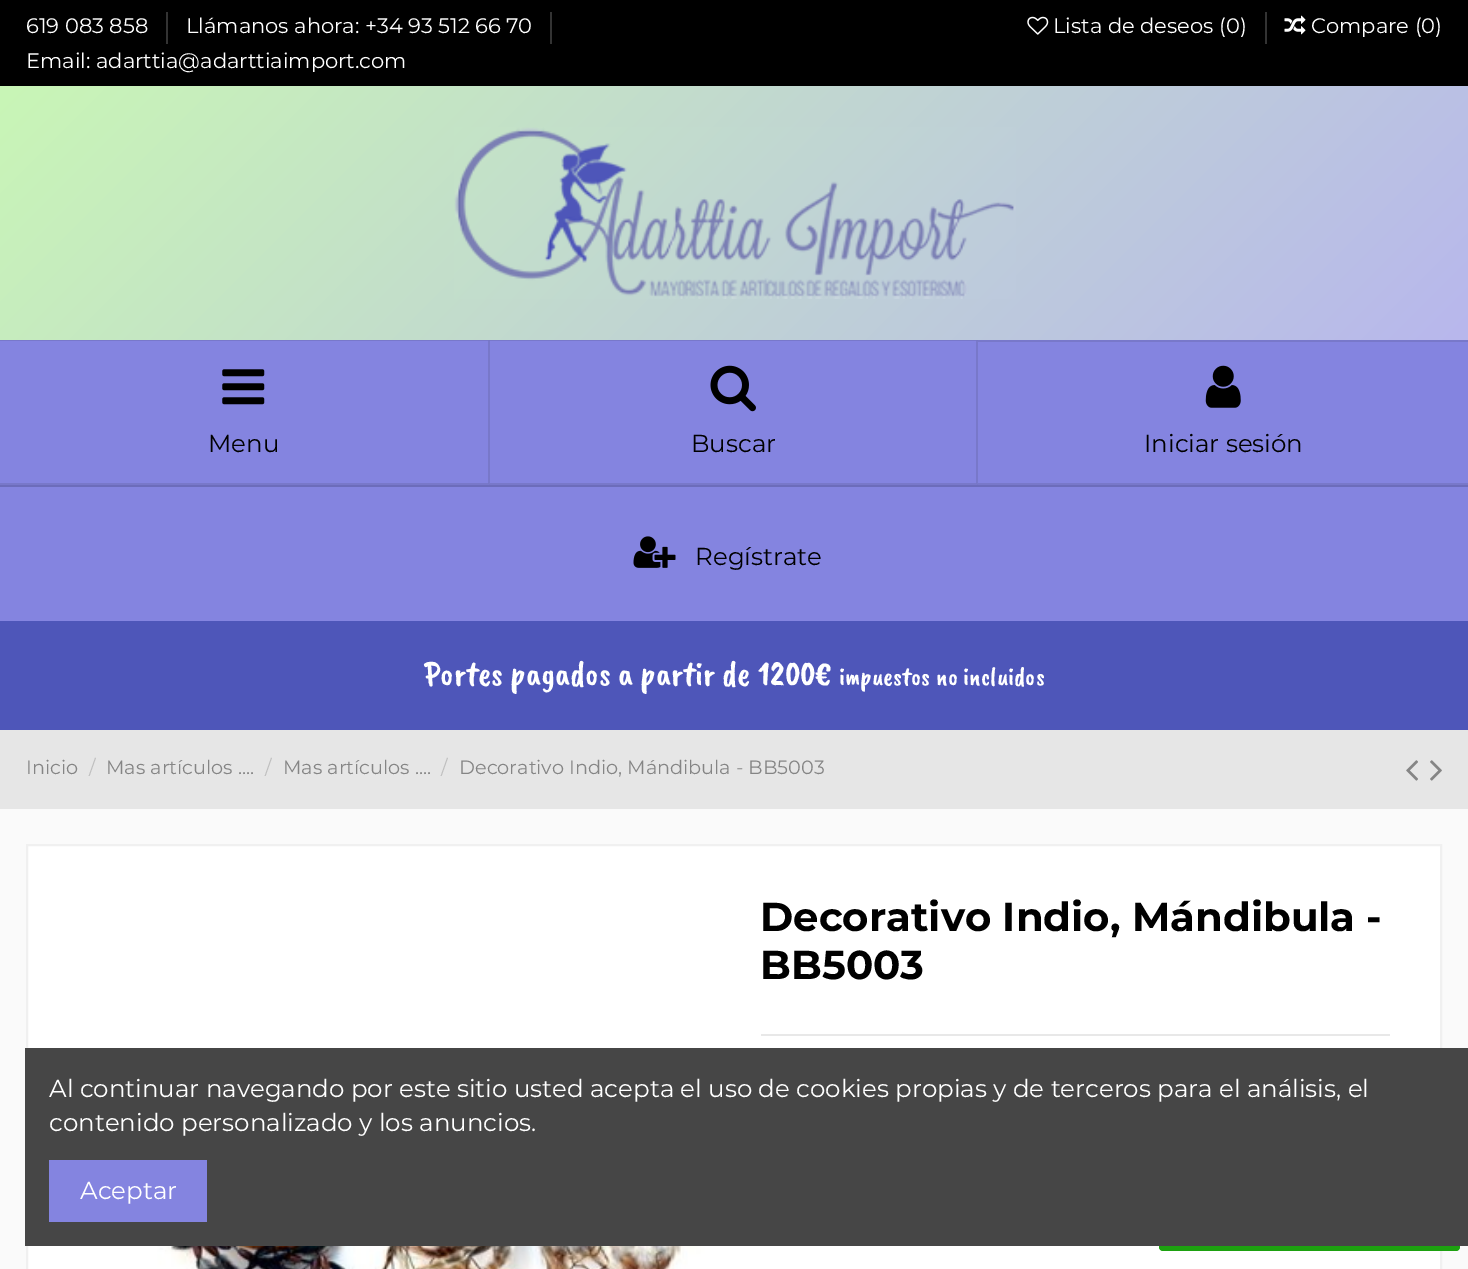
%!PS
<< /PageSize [1468 1269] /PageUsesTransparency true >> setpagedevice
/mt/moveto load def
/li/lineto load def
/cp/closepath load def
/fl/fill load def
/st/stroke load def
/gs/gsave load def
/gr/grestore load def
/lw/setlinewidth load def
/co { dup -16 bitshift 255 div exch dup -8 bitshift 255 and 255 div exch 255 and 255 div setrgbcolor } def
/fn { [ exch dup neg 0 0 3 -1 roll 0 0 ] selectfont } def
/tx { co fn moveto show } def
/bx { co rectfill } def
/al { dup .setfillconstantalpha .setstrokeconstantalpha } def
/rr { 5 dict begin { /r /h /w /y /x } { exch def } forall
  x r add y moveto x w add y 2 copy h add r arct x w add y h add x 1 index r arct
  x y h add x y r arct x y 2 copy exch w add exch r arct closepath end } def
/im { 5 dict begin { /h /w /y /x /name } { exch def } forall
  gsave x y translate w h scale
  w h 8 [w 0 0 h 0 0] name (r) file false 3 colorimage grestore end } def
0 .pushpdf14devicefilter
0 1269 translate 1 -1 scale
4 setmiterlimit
0 0 1468 1269 16#FAFAFA bx
gs 0 86 mt 1468 86 li 1468 340 li 0 340 li cp clip newpath
<< /ShadingType 2 /ColorSpace /DeviceRGB /Coords [185 -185 1284 914] /Extend [true true] /Function << /FunctionType 2 /Domain [0 1] /C0 [.792 .976 .702] /C1 [.706 .663 .98] /N 1 >> >> shfill gr
0 0 1468 86 16#000000 bx
166 12 2 32 16#333333 bx
550 12 2 32 16#333333 bx
(media/1.raw) 1027 16 22 19 im
1265 12 2 32 16#333333 bx
(media/2.raw) 1284 15 22 20 im
0 485 1468 2 16#6C6CBB bx
(media/3.raw) 454 127 562 172 im
0 340 1468 145 16#8484E0 bx
16#7878CA co
0 340 mt 490 340 li 488 341 li 0 341 li cp fl
0.11 al
16#151515 co
490 340 mt 490 485 li 488 483 li 488 341 li cp fl
490 485 mt 0 485 li 0 483 li 488 483 li cp fl
1 al
(media/4.raw) 222 369 43 36 im
16#7878CA co
490 340 mt 978 340 li 976 341 li 490 341 li cp fl
0.11 al
16#151515 co
978 340 mt 978 485 li 976 483 li 976 341 li cp fl
978 485 mt 490 485 li 490 483 li 976 483 li cp fl
1 al
(media/5.raw) 710 365 46 47 im
978 340 490 2 16#7878CA bx
978 483 490 2 16#7878CA bx
(media/6.raw) 1205 365 36 43 im
0 487 1468 134 16#8484E0 bx
(media/7.raw) 633 536 43 32 im
0 621 1468 109 16#4E56B9 bx
0 730 1468 79 16#E6E6E6 bx
(media/8.raw) 1406 760 12 21 im
(media/9.raw) 1430 760 12 21 im
16#FFFFFF co
27 845 mt 1441 845 li 1441 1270 li 27 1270 li cp gs fl gr
16#F0F0F0 co
2 lw
st
761 1034 629 2 16#E8E8E8 bx
(media/10.raw) 131 1246 578 23 im
16#1DA110 co
1159 1209 301 42 4 rr fl
25 1048 1443 198 16#464646 bx
49 1160 158 62 16#8484E0 bx
(619 083 858) 26 33 /Montserrat-Regular 21 16#FFFFFF tx
(Llámanos ahora: +34 93 512 66 70) 186 33 /Montserrat-Regular 21 16#FFFFFF tx
(Email: adarttia@adarttiaimport.com) 26 68 /Montserrat-Regular 21 16#FFFFFF tx
(Lista de deseos \(0\)) 1053 33 /Montserrat-Regular 21 16#FFFFFF tx
(Compare \(0\)) 1311 33 /Montserrat-Regular 21 16#FFFFFF tx
(Menu) 208 452 /Montserrat-Regular 24.5 16#000000 tx
(Buscar) 691 452 /Montserrat-Regular 24.5 16#000000 tx
(Iniciar sesión) 1144 452 /Montserrat-Regular 24.5 16#000000 tx
(Regístrate) 695 565 /Montserrat-Regular 24.5 16#000000 tx
(Portes pagados a partir de 1200€) 424 685 /CaveatBrush-Regular 35 16#FFFFFF tx
(impuestos no incluidos) 839 685 /CaveatBrush-Regular 26.25 16#FFFFFF tx
(Inicio) 26 774 /Montserrat-Regular 19.25 16#858585 tx
(/) 89 774 /Montserrat-Regular 19.25 16#BFBFBF tx
(Mas artículos ....) 106 774 /Montserrat-Regular 19.25 16#858585 tx
(/) 265 774 /Montserrat-Regular 19.25 16#BFBFBF tx
(Mas artículos ....) 283 774 /Montserrat-Regular 19.25 16#858585 tx
(/) 441 774 /Montserrat-Regular 19.25 16#BFBFBF tx
(Decorativo Indio, Mándibula - BB5003) 459 774 /Montserrat-Regular 19.25 16#858585 tx
(Decorativo Indio, Mándibula -) 760 931 /Montserrat-Bold 40.25 16#000000 tx
(BB5003) 760 979 /Montserrat-Bold 40.25 16#000000 tx
(Al continuar navegando por este sitio usted acepta el uso de cookies propias y de terceros para el análisis, el) 49 1097 /Montserrat-Regular 24.5 16#FFFFFF tx
(contenido personalizado y los anuncios.) 49 1131 /Montserrat-Regular 24.5 16#FFFFFF tx
(Aceptar) 80 1199 /Montserrat-Regular 24.5 16#FFFFFF tx
.poppdf14devicefilter showpage
